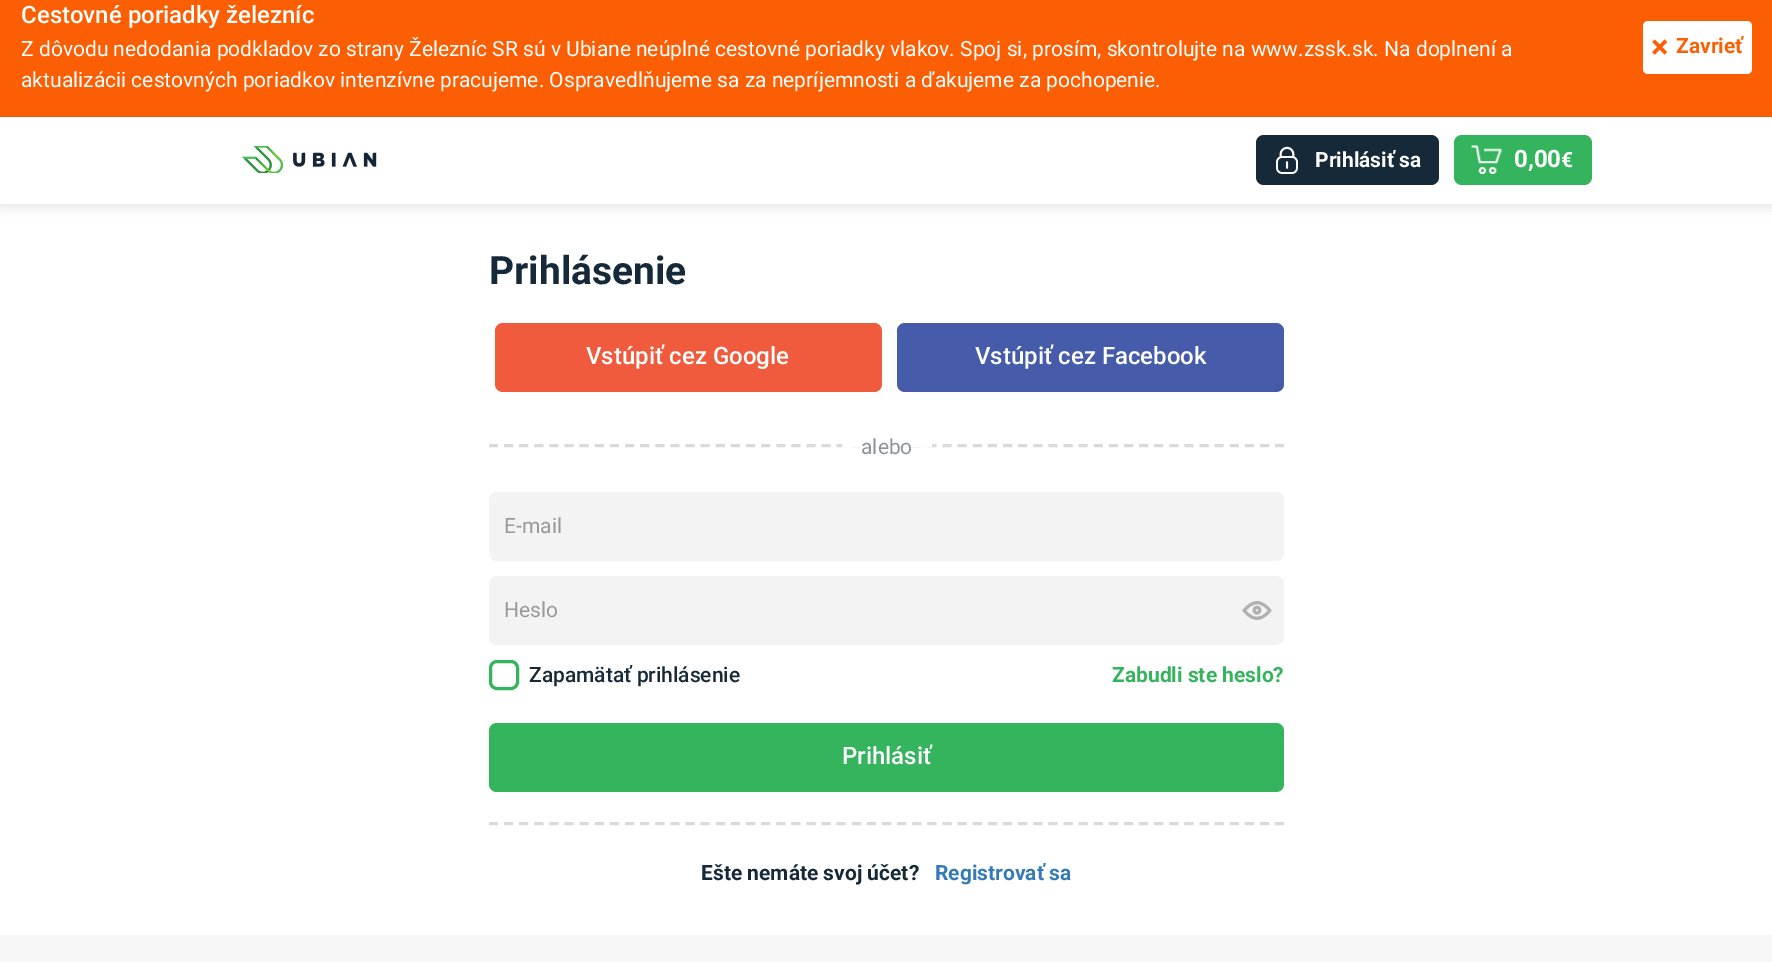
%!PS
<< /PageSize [1772 962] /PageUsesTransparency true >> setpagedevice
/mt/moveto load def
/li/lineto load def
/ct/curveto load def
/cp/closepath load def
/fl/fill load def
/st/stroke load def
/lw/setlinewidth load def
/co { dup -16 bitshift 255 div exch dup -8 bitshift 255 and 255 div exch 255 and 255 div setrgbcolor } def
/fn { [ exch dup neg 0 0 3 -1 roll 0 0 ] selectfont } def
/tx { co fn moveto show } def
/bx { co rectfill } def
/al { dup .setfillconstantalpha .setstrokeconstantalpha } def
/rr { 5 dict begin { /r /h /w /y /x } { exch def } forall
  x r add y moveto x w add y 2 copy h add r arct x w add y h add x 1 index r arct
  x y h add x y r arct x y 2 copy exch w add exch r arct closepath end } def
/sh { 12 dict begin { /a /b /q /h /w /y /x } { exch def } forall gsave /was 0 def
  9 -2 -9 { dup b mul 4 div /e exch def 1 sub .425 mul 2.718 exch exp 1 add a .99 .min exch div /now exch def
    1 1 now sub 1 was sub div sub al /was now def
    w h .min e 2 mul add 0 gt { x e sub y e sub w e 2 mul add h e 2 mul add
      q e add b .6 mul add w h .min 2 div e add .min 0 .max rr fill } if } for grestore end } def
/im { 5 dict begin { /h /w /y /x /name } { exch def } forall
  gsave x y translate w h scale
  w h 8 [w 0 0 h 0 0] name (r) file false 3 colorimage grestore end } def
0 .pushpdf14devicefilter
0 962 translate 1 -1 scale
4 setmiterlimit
0 0 1772 962 16#F7F7F7 bx
0 0 1772 117 16#FC5E03 bx
16#FFFFFF co
1643 21 109 53 5 rr fl
0 204 1772 731 16#FFFFFF bx
16#000000 co
0 120 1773 87 0 7 .11 sh
0 117 1772 87 16#FFFFFF bx
(media/1.raw) 242 146 135 27 im
16#162938 co
1256 135 183 50 8 rr fl
(media/2.raw) 1276 146 22 28 im
16#33B45D co
1454 135 138 50 8 rr fl
(media/3.raw) 1471 145 31 29 im
16#F15B3D co
495 323 387 69 8 rr fl
16#465CAA co
897 323 387 69 8 rr fl
16#DADADA co
3 lw
[9 6.12] 0 setdash
489 445.5 mt 1284 445.5 li st
489 823.5 mt 1284 823.5 li st
842 444 90 3 16#FFFFFF bx
16#F3F3F3 co
489 492 795 69 8 rr fl
497 576 mt 1230 576 li 1230 645 li 497 645 li 492.5 645 489 641.5 489 637 ct 489 584 li 489 579.5 492.5 576 497 576 ct cp fl
1230 576 mt 1276 576 li 1280.5 576 1284 579.5 1284 584 ct 1284 637 li 1284 641.5 1280.5 645 1276 645 ct 1230 645 li cp fl
(media/4.raw) 1242 601 30 19 im
16#33B45D co
[] 0 setdash
490.5 661.5 27 27 6.5 rr st
489 723 795 69 8 rr fl
(Cestovné poriadky železníc) 21 23 /Roboto-Medium 24 16#FFFFFF tx
(Z dôvodu nedodania podkladov zo strany Železníc SR sú v Ubiane neúplné cestovné poriadky vlakov. Spoj si, prosím, skontrolujte na www.zssk.sk. Na doplnení a) 21 56 /Roboto-Regular 21 16#FFFFFF tx
(aktualizácii cestovných poriadkov intenzívne pracujeme. Ospravedlňujeme sa za nepríjemnosti a ďakujeme za pochopenie.) 21 87 /Roboto-Regular 21 16#FFFFFF tx
(×) 1651 58 /Roboto-Bold 33 16#FC5E03 tx
(Zavrieť) 1676 53 /Roboto-Bold 21 16#FC5E03 tx
(Prihlásiť sa) 1315 167 /Roboto-Bold 21 16#FFFFFF tx
(0,00) 1514 167 /Roboto-Bold 24 16#FFFFFF tx
(€) 1561 167 /Roboto-Bold 21 16#FFFFFF tx
(Prihlásenie) 489 284 /Roboto-Bold 39 16#162938 tx
(Vstúpiť cez Google) 586 364 /Roboto-Medium 24 16#FFFFFF tx
(Vstúpiť cez Facebook) 975 364 /Roboto-Medium 24 16#FFFFFF tx
(alebo) 861 454 /Roboto-Regular 21 16#8B949C tx
(E-mail) 504 533 /Roboto-Regular 21 16#999999 tx
(Heslo) 504 617 /Roboto-Regular 21 16#999999 tx
(Zapamätať prihlásenie) 529 682 /Roboto-Medium 21 16#162938 tx
(Zabudli ste heslo?) 1112 682 /Roboto-Bold 21 16#33B45D tx
(Prihlásiť) 842 764 /Roboto-Medium 24 16#FFFFFF tx
(Ešte nemáte svoj účet?) 701 880 /Roboto-Bold 21 16#162938 tx
(Registrovať sa) 935 880 /Roboto-Bold 21 16#337AB7 tx
.poppdf14devicefilter showpage
